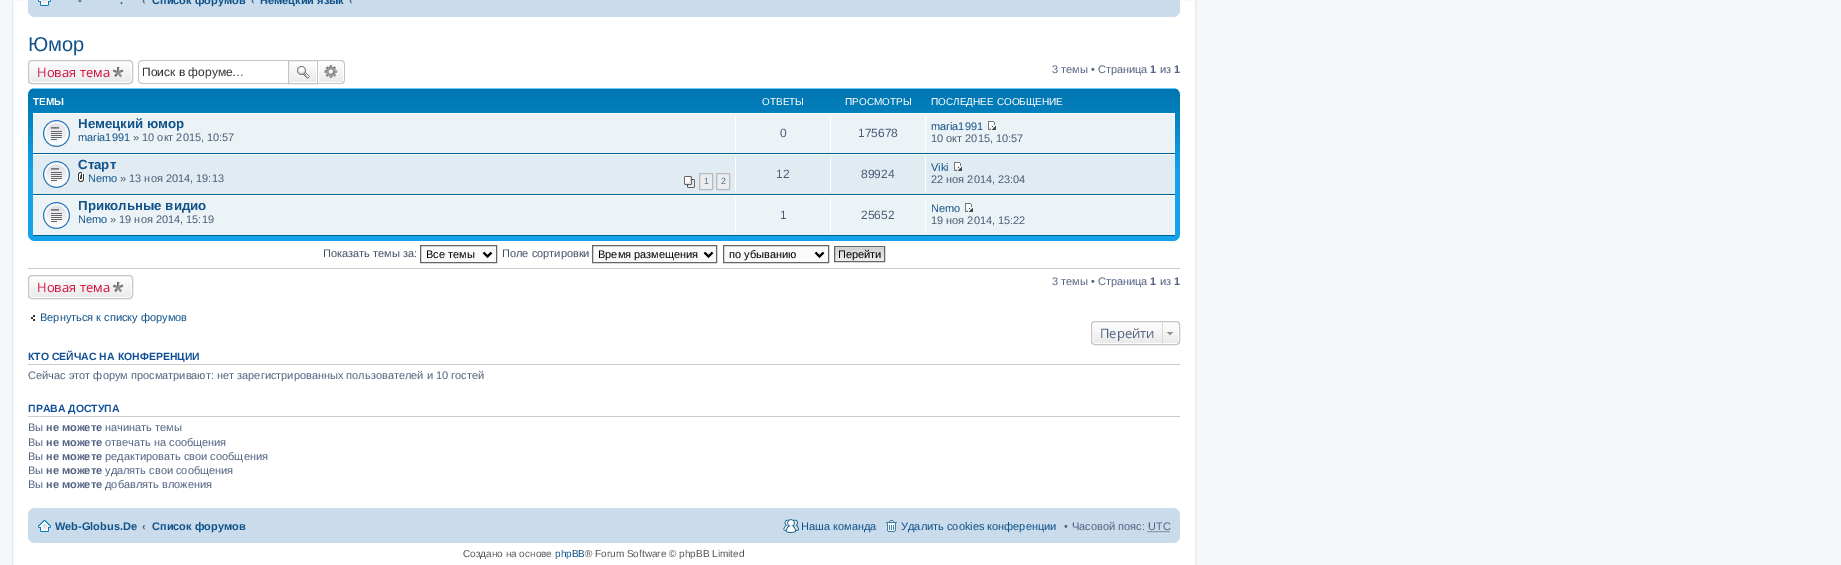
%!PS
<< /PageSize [1841 565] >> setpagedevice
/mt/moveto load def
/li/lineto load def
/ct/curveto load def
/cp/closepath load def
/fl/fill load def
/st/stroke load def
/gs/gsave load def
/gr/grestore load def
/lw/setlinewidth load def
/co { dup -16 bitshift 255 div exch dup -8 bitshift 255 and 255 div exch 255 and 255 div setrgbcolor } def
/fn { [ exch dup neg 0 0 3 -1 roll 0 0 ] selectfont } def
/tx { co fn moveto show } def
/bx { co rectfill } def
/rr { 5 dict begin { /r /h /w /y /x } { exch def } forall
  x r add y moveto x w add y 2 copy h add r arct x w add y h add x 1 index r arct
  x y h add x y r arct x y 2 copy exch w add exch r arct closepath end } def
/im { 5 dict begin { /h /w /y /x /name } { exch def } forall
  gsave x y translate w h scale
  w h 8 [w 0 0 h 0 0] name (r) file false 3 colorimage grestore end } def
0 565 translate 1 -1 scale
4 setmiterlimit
0 0 1841 565 16#F5F7FA bx
16#FFFFFF co
12.5 -.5 mt 1195.5 -.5 li 1195.5 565.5 li 12.5 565.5 li cp gs fl gr
16#E6E9ED co
st
16#CADCEB co
28 -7 1152 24 7 rr fl
(media/1.raw) 38 0 13 6 im
gs
28 60 105 24 4 rr clip newpath
gs 28 61 mt 133 61 li 133 83 li 28 83 li cp clip newpath
<< /ShadingType 2 /ColorSpace /DeviceRGB /Coords [81 61 81 83] /Extend [true true] /Function << /FunctionType 2 /Domain [0 1] /C0 [1 1 1] /C1 [.914 .914 .914] /N 1 >> >> shfill gr
gr
16#FFFFFF co
29.5 61.5 102 21 2.5 rr st
16#C7C3BF co
28.5 60.5 104 23 3.5 rr st
(media/2.raw) 113 67 11 11 im
142 60 mt 288 60 li 288 84 li 142 84 li 140 84 138 82 138 80 ct 138 64 li 138 62 140 60 142 60 ct cp 142 61 mt 288 61 li 288 83 li 142 83 li 140 83 139 82 139 80 ct 139 64 li 139 62 140 61 142 61 ct cp eofill
gs 290 64 mt 316 64 li 316 82 li 290 82 li cp clip newpath
<< /ShadingType 2 /ColorSpace /DeviceRGB /Coords [303 61 303 83] /Extend [true true] /Function << /FunctionType 2 /Domain [0 1] /C0 [1 1 1] /C1 [.914 .914 .914] /N 1 >> >> shfill gr
288.5 60.5 29 23 rectstroke
(media/3.raw) 297 66 13 13 im
gs 318.5 61.5 mt 341 61.5 li 342.5 61.5 343.5 62.5 343.5 64 ct 343.5 80 li 343.5 81.5 342.5 82.5 341 82.5 ct 318.5 82.5 li cp clip newpath
<< /ShadingType 2 /ColorSpace /DeviceRGB /Coords [331 61 331 83] /Extend [true true] /Function << /FunctionType 2 /Domain [0 1] /C0 [1 1 1] /C1 [.914 .914 .914] /N 1 >> >> shfill gr
16#FFFFFF co
318.5 61.5 mt 341 61.5 li 342.5 61.5 343.5 62.5 343.5 64 ct 343.5 80 li 343.5 81.5 342.5 82.5 341 82.5 ct 318.5 82.5 li cp st
16#C7C3BF co
318 60 mt 341 60 li 343 60 345 62 345 64 ct 345 80 li 345 82 343 84 341 84 ct 318 84 li cp 318 61 mt 341 61 li 342.5 61 344 62.5 344 64 ct 344 80 li 344 81.5 342.5 83 341 83 ct 318 83 li cp eofill
(media/4.raw) 324 65 14 13 im
16#12A3EB co
28 88 1152 153 7 rr fl
(media/5.raw) 28 88 1152 82 im
33 114 1142 39 16#ECF3F7 bx
33 113 1142 1 16#FFFFFF bx
33 153 1142 1 16#00608F bx
(media/6.raw) 43 120 27 27 im
735 116 1 35 16#FFFFFF bx
830 116 1 35 16#FFFFFF bx
925 116 1 35 16#FFFFFF bx
(media/7.raw) 988 121 8 9 im
33 155 1142 39 16#E1EBF2 bx
33 154 1142 1 16#FFFFFF bx
33 194 1142 1 16#00608F bx
(media/8.raw) 43 161 27 27 im
(media/9.raw) 78 172 7 10 im
(media/10.raw) 684 176 11 12 im
16#ECEDEE co
699.5 173.5 13 16 .5 rr gs fl gr
16#B4BAC0 co
st
16#ECEDEE co
716.5 173.5 13 16 .5 rr gs fl gr
16#B4BAC0 co
st
735 157 1 35 16#FFFFFF bx
830 157 1 35 16#FFFFFF bx
925 157 1 35 16#FFFFFF bx
(media/11.raw) 954 162 8 9 im
33 196 1142 39 16#ECF3F7 bx
33 195 1142 1 16#FFFFFF bx
33 235 1142 1 16#00608F bx
(media/6.raw) 43 202 27 27 im
735 198 1 35 16#FFFFFF bx
830 198 1 35 16#FFFFFF bx
925 198 1 35 16#FFFFFF bx
(media/7.raw) 965 203 8 9 im
16#FAFAFA co
420.5 245.5 mt 496.5 245.5 li 496.5 262.5 li 420.5 262.5 li cp gs fl gr
16#666666 co
st
16#000000 co
2 lw
483.5 252.5 mt 487.5 256.5 li 491.5 252.5 li st
16#FAFAFA co
592.5 245.5 mt 716.5 245.5 li 716.5 262.5 li 592.5 262.5 li cp gs fl gr
16#666666 co
1 lw
st
16#000000 co
2 lw
704.5 252.5 mt 708.5 256.5 li 712.5 252.5 li st
16#FAFAFA co
723.5 245.5 mt 828.5 245.5 li 828.5 262.5 li 723.5 262.5 li cp gs fl gr
16#666666 co
1 lw
st
16#000000 co
2 lw
815.5 252.5 mt 819.5 256.5 li 823.5 252.5 li st
(media/12.raw) 835 247 49 14 im
16#666666 co
1 lw
834.5 246.5 50 15 rectstroke
28 268 1152 1 16#CCCCCC bx
gs
28 275 105 24 4 rr clip newpath
gs 28 276 mt 133 276 li 133 298 li 28 298 li cp clip newpath
<< /ShadingType 2 /ColorSpace /DeviceRGB /Coords [81 276 81 298] /Extend [true true] /Function << /FunctionType 2 /Domain [0 1] /C0 [1 1 1] /C1 [.914 .914 .914] /N 1 >> >> shfill gr
gr
16#FFFFFF co
29.5 276.5 102 21 2.5 rr st
16#C7C3BF co
28.5 275.5 104 23 3.5 rr st
(media/2.raw) 113 282 11 11 im
(media/13.raw) 31 315 4 6 im
gs
1091 321 89 24 4 rr clip newpath
gs 1091 322 mt 1180 322 li 1180 344 li 1091 344 li cp clip newpath
<< /ShadingType 2 /ColorSpace /DeviceRGB /Coords [1136 322 1136 344] /Extend [true true] /Function << /FunctionType 2 /Domain [0 1] /C0 [1 1 1] /C1 [.914 .914 .914] /N 1 >> >> shfill gr
gr
16#FFFFFF co
1092.5 322.5 86 21 2.5 rr st
16#C7C3BF co
1091.5 321.5 88 23 3.5 rr st
(media/14.raw) 1166 332 8 4 im
1162 322 1 22 16#DADADA bx
28 364 1152 1 16#CCCCCC bx
28 416 1152 1 16#CCCCCC bx
16#CADCEB co
28 508 1152 35 7 rr fl
(media/15.raw) 38 520 13 12 im
(media/16.raw) 783 519 16 14 im
(media/17.raw) 886 520 11 12 im
16#536482 co
[1 1] 0 setdash
1147.5 531.5 mt 1170 531.5 li st
(-) 78 4 /LiberationSans-Bold 11 16#105289 tx
(.) 120 4 /LiberationSans-Bold 11 16#105289 tx
(‹) 142 4 /LiberationSans-Bold 11 16#536482 tx
(Список форумов) 152 4 /LiberationSans-Bold 11 16#105289 tx
(‹) 251 4 /LiberationSans-Bold 11 16#536482 tx
(Немецкий язык) 260 4 /LiberationSans-Bold 11 16#105289 tx
(‹) 349 4 /LiberationSans-Bold 11 16#536482 tx
(Юмор) 28 51 /LiberationSans-Regular 20 16#105289 tx
(Новая тема) 37 77 /OpenSans-Regular 13 16#D31141 tx
(Поиск в форуме…) 142 76 /LiberationSans-Regular 12 16#333333 tx
(3 темы • Страница) 1052 73 /LiberationSans-Regular 11 16#536482 tx
(1) 1150 73 /LiberationSans-Bold 11 16#536482 tx
(из) 1160 73 /LiberationSans-Regular 11 16#536482 tx
(1) 1174 73 /LiberationSans-Bold 11 16#536482 tx
(ТЕМЫ) 33 105 /LiberationSans-Bold 10 16#FFFFFF tx
(ОТВЕТЫ) 762 105 /LiberationSans-Regular 10 16#FFFFFF tx
(ПРОСМОТРЫ) 845 105 /LiberationSans-Regular 10 16#FFFFFF tx
(ПОСЛЕДНЕЕ СООБЩЕНИЕ) 931 105 /LiberationSans-Regular 10 16#FFFFFF tx
(Немецкий юмор) 78 128 /LiberationSans-Bold 13.25 16#105289 tx
(maria1991) 78 141 /LiberationSans-Regular 11 16#105289 tx
(» 10 окт 2015, 10:57) 133 141 /LiberationSans-Regular 11 16#4C5D77 tx
(0) 780 137 /LiberationSans-Regular 12 16#4C5D77 tx
(175678) 858 137 /LiberationSans-Regular 12 16#4C5D77 tx
(maria1991) 931 130 /LiberationSans-Regular 11 16#105289 tx
(10 окт 2015, 10:57) 931 142 /LiberationSans-Regular 11 16#4C5D77 tx
(Старт) 78 169 /LiberationSans-Bold 13.25 16#105289 tx
(Nemo) 88 182 /LiberationSans-Regular 11 16#105289 tx
(» 13 ноя 2014, 19:13) 120 182 /LiberationSans-Regular 11 16#4C5D77 tx
(1) 704 184 /LiberationSans-Regular 9 16#5C758C tx
(2) 721 184 /LiberationSans-Regular 9 16#5C758C tx
(12) 776 178 /LiberationSans-Regular 12 16#4C5D77 tx
(89924) 861 178 /LiberationSans-Regular 12 16#4C5D77 tx
(Viki) 931 171 /LiberationSans-Regular 11 16#105289 tx
(22 ноя 2014, 23:04) 931 183 /LiberationSans-Regular 11 16#4C5D77 tx
(Прикольные видио) 78 210 /LiberationSans-Bold 13.25 16#105289 tx
(Nemo) 78 223 /LiberationSans-Regular 11 16#105289 tx
(» 19 ноя 2014, 15:19) 110 223 /LiberationSans-Regular 11 16#4C5D77 tx
(1) 780 219 /LiberationSans-Regular 12 16#4C5D77 tx
(25652) 861 219 /LiberationSans-Regular 12 16#4C5D77 tx
(Nemo) 931 212 /LiberationSans-Regular 11 16#105289 tx
(19 ноя 2014, 15:22) 931 224 /LiberationSans-Regular 11 16#4C5D77 tx
(Показать темы за:) 323 257 /LiberationSans-Regular 11 16#425067 tx
(Все темы) 426 258 /LiberationSans-Regular 11 16#000000 tx
(Поле сортировки) 502 257 /LiberationSans-Regular 11 16#425067 tx
(Время размещения) 598 258 /LiberationSans-Regular 11 16#000000 tx
(по убыванию) 729 258 /LiberationSans-Regular 11 16#000000 tx
(Перейти) 838 258 /LiberationSans-Regular 11 16#000000 tx
(Новая тема) 37 292 /OpenSans-Regular 13 16#D31141 tx
(3 темы • Страница) 1052 285 /LiberationSans-Regular 11 16#536482 tx
(1) 1150 285 /LiberationSans-Bold 11 16#536482 tx
(из) 1160 285 /LiberationSans-Regular 11 16#536482 tx
(1) 1174 285 /LiberationSans-Bold 11 16#536482 tx
(Вернуться к списку форумов) 40 321 /LiberationSans-Regular 11 16#105289 tx
(Перейти) 1100 338 /OpenSans-Regular 13 16#536482 tx
(КТО СЕЙЧАС НА КОНФЕРЕНЦИИ) 28 360 /LiberationSans-Bold 10.5 16#115098 tx
(Сейчас этот форум просматривают: нет зарегистрированных пользователей и 10 гостей) 28 379 /LiberationSans-Regular 11 16#536482 tx
(ПРАВА ДОСТУПА) 28 412 /LiberationSans-Bold 10.5 16#115098 tx
(Вы) 28 431 /LiberationSans-Regular 11 16#536482 tx
(не можете) 46 431 /LiberationSans-Bold 11 16#536482 tx
(начинать темы) 105 431 /LiberationSans-Regular 11 16#536482 tx
(Вы) 28 446 /LiberationSans-Regular 11 16#536482 tx
(не можете) 46 446 /LiberationSans-Bold 11 16#536482 tx
(отвечать на сообщения) 105 446 /LiberationSans-Regular 11 16#536482 tx
(Вы) 28 460 /LiberationSans-Regular 11 16#536482 tx
(не можете) 46 460 /LiberationSans-Bold 11 16#536482 tx
(редактировать свои сообщения) 105 460 /LiberationSans-Regular 11 16#536482 tx
(Вы) 28 474 /LiberationSans-Regular 11 16#536482 tx
(не можете) 46 474 /LiberationSans-Bold 11 16#536482 tx
(удалять свои сообщения) 105 474 /LiberationSans-Regular 11 16#536482 tx
(Вы) 28 488 /LiberationSans-Regular 11 16#536482 tx
(не можете) 46 488 /LiberationSans-Bold 11 16#536482 tx
(добавлять вложения) 105 488 /LiberationSans-Regular 11 16#536482 tx
(Web-Globus.De) 55 530 /LiberationSans-Bold 11 16#105289 tx
(‹) 142 530 /LiberationSans-Bold 11 16#536482 tx
(Список форумов) 152 530 /LiberationSans-Bold 11 16#105289 tx
(Наша команда) 801 530 /LiberationSans-Regular 11 16#105289 tx
(Удалить cookies конференции) 901 530 /LiberationSans-Regular 11 16#105289 tx
(•) 1064 530 /LiberationSans-Regular 11 16#536482 tx
(Часовой пояс: UTC) 1072 530 /LiberationSans-Regular 11 16#536482 tx
(Создано на основе) 463 557 /LiberationSans-Regular 10 16#555555 tx
(phpBB) 555 557 /LiberationSans-Regular 10 16#105289 tx
(® Forum Software © phpBB Limited) 585 557 /LiberationSans-Regular 10 16#555555 tx
showpage
